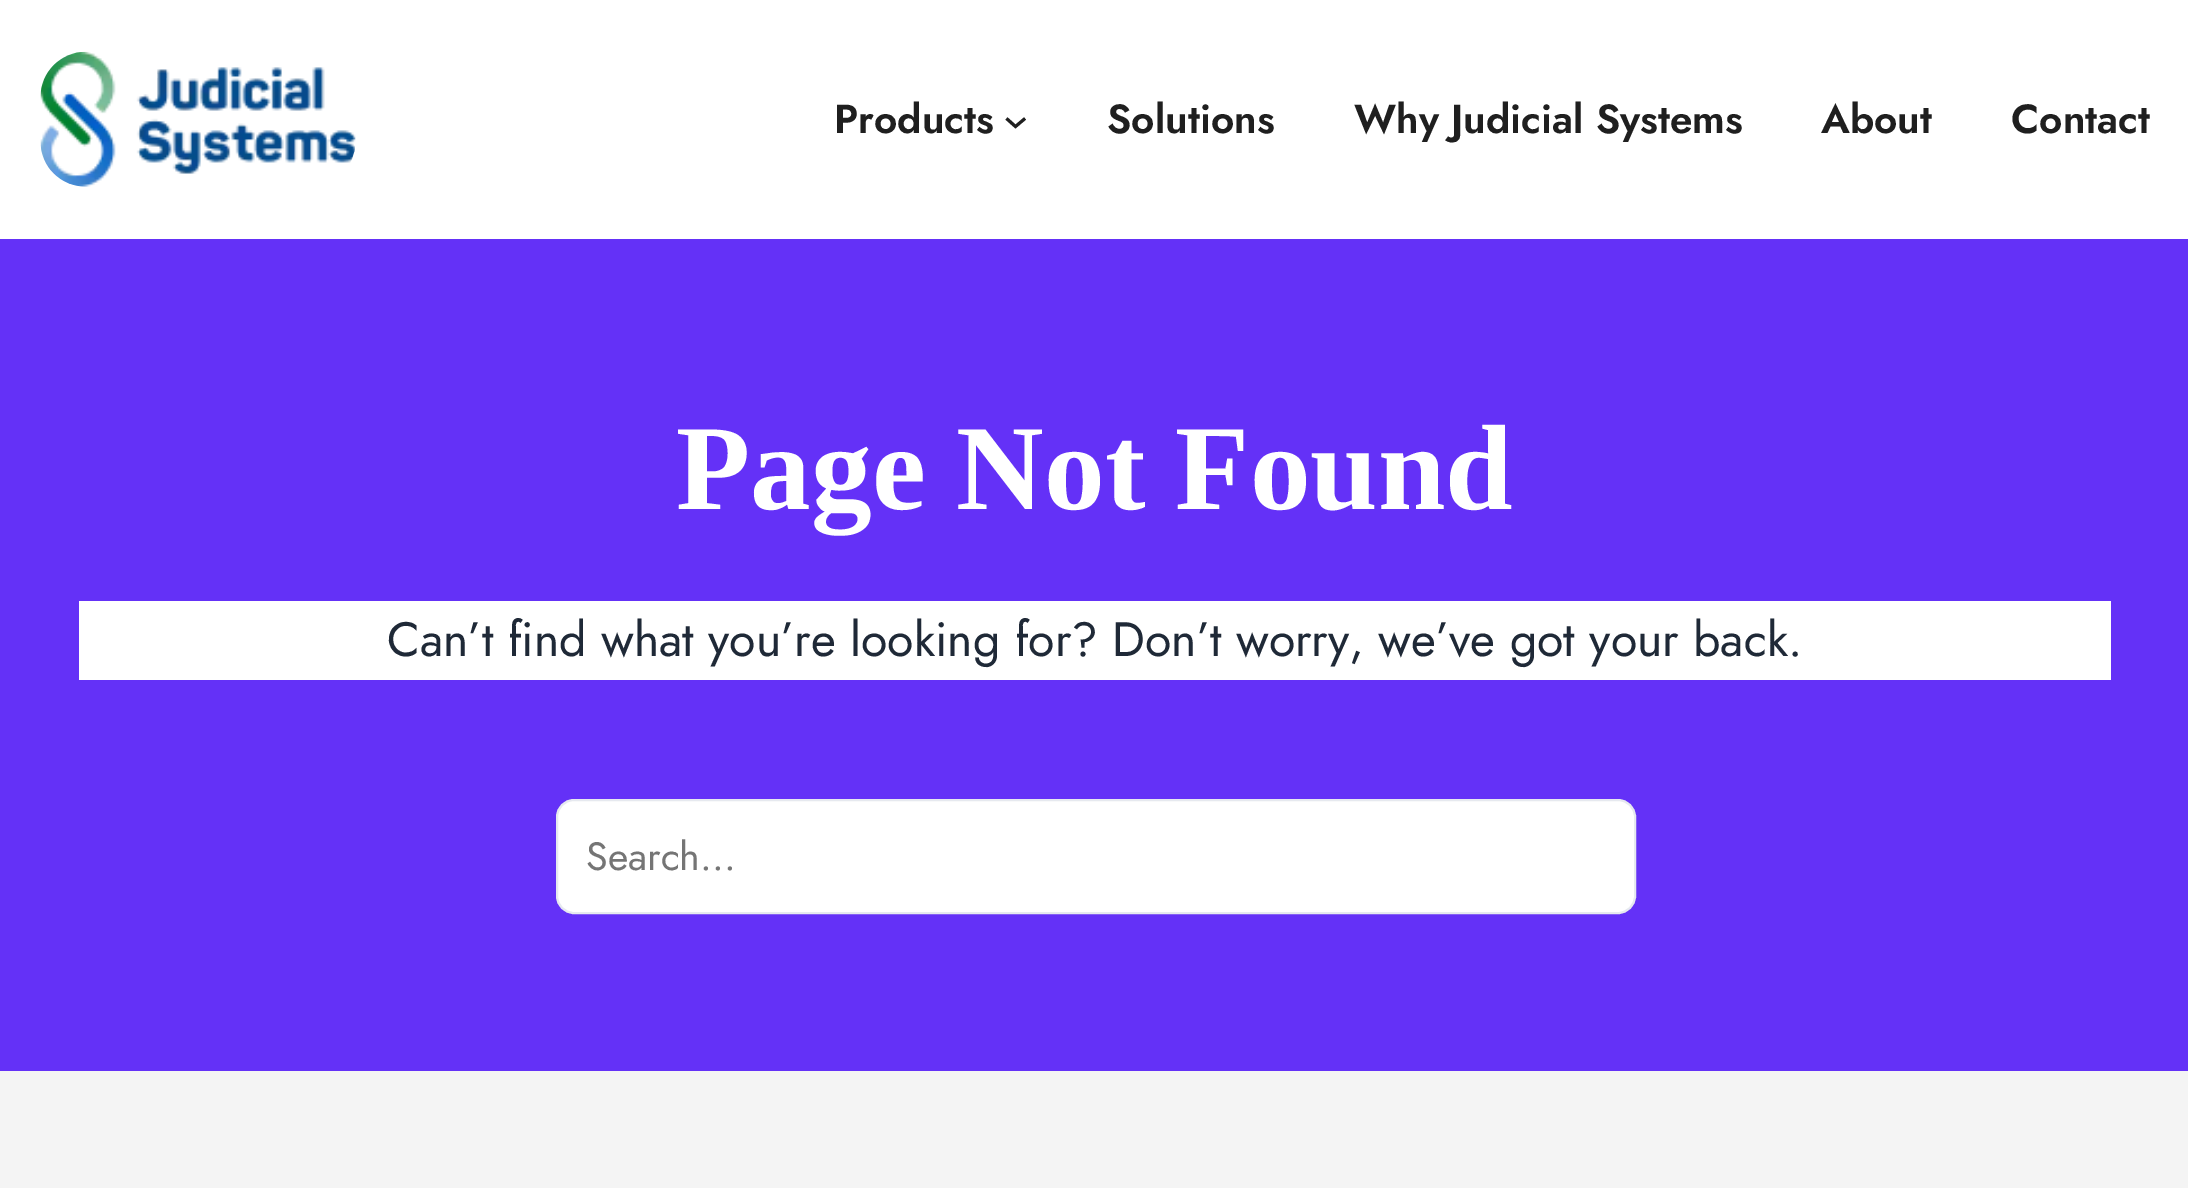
%!PS
<< /PageSize [2188 1188] >> setpagedevice
/mt/moveto load def
/li/lineto load def
/fl/fill load def
/st/stroke load def
/gs/gsave load def
/gr/grestore load def
/lw/setlinewidth load def
/co { dup -16 bitshift 255 div exch dup -8 bitshift 255 and 255 div exch 255 and 255 div setrgbcolor } def
/fn { [ exch dup neg 0 0 3 -1 roll 0 0 ] selectfont } def
/tx { co fn moveto show } def
/bx { co rectfill } def
/rr { 5 dict begin { /r /h /w /y /x } { exch def } forall
  x r add y moveto x w add y 2 copy h add r arct x w add y h add x 1 index r arct
  x y h add x y r arct x y 2 copy exch w add exch r arct closepath end } def
/im { 5 dict begin { /h /w /y /x /name } { exch def } forall
  gsave x y translate w h scale
  w h 8 [w 0 0 h 0 0] name (r) file false 3 colorimage grestore end } def
0 1188 translate 1 -1 scale
4 setmiterlimit
0 0 2188 1188 16#FFFFFF bx
(media/1.raw) 40 51 316 136 im
16#1F1F1F co
3 lw
1006.5 118.5 mt 1015.5 126.5 li 1025 118.5 li st
0 239 2188 832 16#6431F7 bx
79 601 2032 79 16#FFFFFF bx
557 800 1078 113 17 rr gs fl gr
16#E6E9EF co
2 lw
st
0 1071 2188 117 16#F4F4F4 bx
(Products) 834 133 /Jost-SemiBold 40.5 16#1F1F1F tx
(Solutions) 1107 133 /Jost-SemiBold 40.5 16#1F1F1F tx
(Why Judicial Systems) 1354 133 /Jost-SemiBold 40.5 16#1F1F1F tx
(About) 1821 133 /Jost-SemiBold 40.5 16#1F1F1F tx
(Contact) 2011 133 /Jost-SemiBold 40.5 16#1F1F1F tx
(Page Not Found) 676 509 /LiberationSerif-Bold 121.5 16#FFFFFF tx
(Can’t find what you’re looking for? Don’t worry, we’ve got your back.) 387 656 /Jost-Regular 48.15 16#1F2937 tx
(Search...) 586 870 /Jost-Regular 39.5 16#757575 tx
showpage
